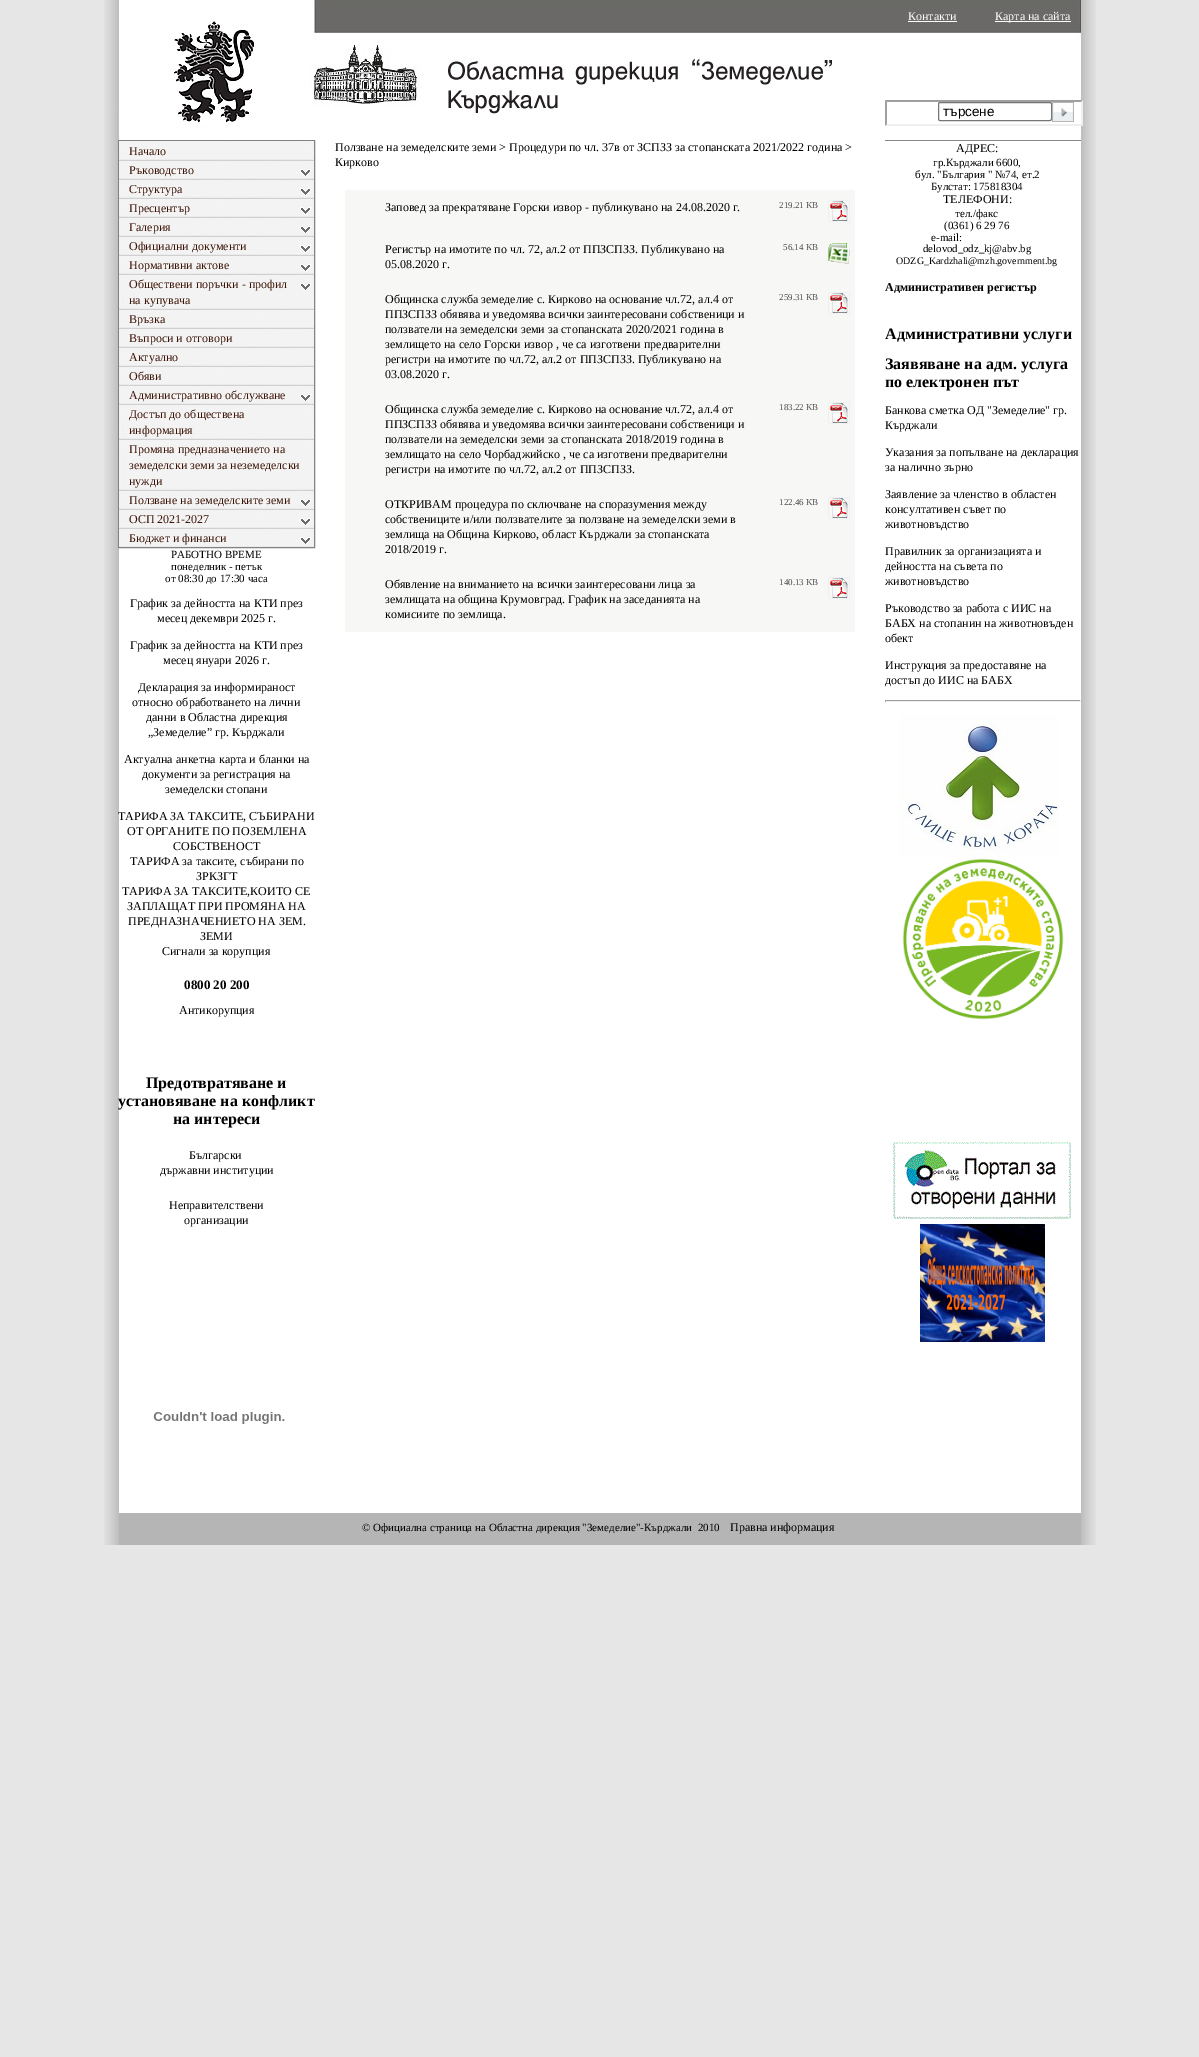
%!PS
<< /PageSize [1199 2057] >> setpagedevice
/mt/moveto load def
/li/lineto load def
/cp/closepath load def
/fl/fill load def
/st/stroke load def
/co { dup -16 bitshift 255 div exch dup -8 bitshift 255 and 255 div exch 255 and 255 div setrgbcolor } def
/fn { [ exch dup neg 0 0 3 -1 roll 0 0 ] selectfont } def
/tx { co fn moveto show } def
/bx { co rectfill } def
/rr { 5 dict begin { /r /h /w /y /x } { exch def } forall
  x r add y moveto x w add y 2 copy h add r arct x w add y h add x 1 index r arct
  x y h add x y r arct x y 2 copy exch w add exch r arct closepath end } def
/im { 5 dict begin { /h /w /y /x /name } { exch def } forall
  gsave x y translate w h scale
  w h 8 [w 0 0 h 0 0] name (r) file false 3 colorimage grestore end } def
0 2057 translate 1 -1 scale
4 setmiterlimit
0 0 1199 2057 16#E6E6E6 bx
(media/1.raw) 104 0 992 140 im
908 21 49 1 16#FFFFFF bx
995 21 76 1 16#FFFFFF bx
(media/2.raw) 104 140 992 1373 im
16#9F9F9F co
885 100 mt 1083 100 li 1081 102 li 887 102 li cp fl
16#EFEFEF co
1083 100 mt 1083 126 li 1081 124 li 1081 102 li cp fl
1083 126 mt 885 126 li 887 124 li 1081 124 li cp fl
16#9F9F9F co
885 126 mt 885 100 li 887 102 li 887 124 li cp fl
16#767676 co
938.5 102.5 113 18 1.5 rr st
(media/3.raw) 1052 102 22 20 im
16#828282 co
118.5 140.5 196 407 rectstroke
(media/4.raw) 119 141 195 18 im
119 159 195 1 16#EBEBEB bx
(media/5.raw) 119 160 195 18 im
119 178 195 1 16#EBEBEB bx
(media/6.raw) 300 169 11 8 im
(media/5.raw) 119 179 195 18 im
119 197 195 1 16#EBEBEB bx
(media/6.raw) 300 188 11 8 im
(media/5.raw) 119 198 195 18 im
119 216 195 1 16#EBEBEB bx
(media/6.raw) 300 207 11 8 im
(media/5.raw) 119 217 195 18 im
119 235 195 1 16#EBEBEB bx
(media/6.raw) 300 226 11 8 im
(media/5.raw) 119 236 195 18 im
119 254 195 1 16#EBEBEB bx
(media/6.raw) 300 245 11 8 im
(media/5.raw) 119 255 195 18 im
119 273 195 1 16#EBEBEB bx
(media/6.raw) 300 264 11 8 im
(media/7.raw) 119 274 195 34 im
119 308 195 1 16#EBEBEB bx
(media/6.raw) 300 283 11 8 im
(media/5.raw) 119 309 195 18 im
119 327 195 1 16#EBEBEB bx
(media/5.raw) 119 328 195 18 im
119 346 195 1 16#EBEBEB bx
(media/5.raw) 119 347 195 18 im
119 365 195 1 16#EBEBEB bx
(media/5.raw) 119 366 195 18 im
119 384 195 1 16#EBEBEB bx
(media/5.raw) 119 385 195 18 im
119 403 195 1 16#EBEBEB bx
(media/6.raw) 300 394 11 8 im
(media/7.raw) 119 404 195 34 im
119 438 195 1 16#EBEBEB bx
(media/8.raw) 119 439 195 50 im
119 489 195 1 16#EBEBEB bx
(media/5.raw) 119 490 195 18 im
119 508 195 1 16#EBEBEB bx
(media/6.raw) 300 499 11 8 im
(media/5.raw) 119 509 195 18 im
119 527 195 1 16#EBEBEB bx
(media/6.raw) 300 518 11 8 im
(media/5.raw) 119 528 195 18 im
119 546 195 1 16#EBEBEB bx
(media/6.raw) 300 537 11 8 im
(media/9.raw) 153 1412 132 12 im
345 190 510 42 16#F7F7F6 bx
(media/10.raw) 828 200 22 22 im
345 232 510 50 16#F7F7F6 bx
(media/11.raw) 828 243 22 21 im
345 282 510 110 16#F7F7F6 bx
(media/10.raw) 828 292 22 22 im
345 392 510 95 16#F7F7F6 bx
(media/10.raw) 828 402 22 22 im
345 487 510 80 16#F7F7F6 bx
(media/10.raw) 828 497 22 22 im
345 567 510 65 16#F7F7F6 bx
(media/10.raw) 828 577 22 22 im
885 140 196 1 16#898989 bx
885 700 196 1 16#9F9F9F bx
1080 700 1 2 16#EEEEEE bx
885 701 196 1 16#EEEEEE bx
885 700 1 2 16#9F9F9F bx
(media/12.raw) 899 714 160 143 im
(media/13.raw) 902 858 162 162 im
(media/14.raw) 893 1142 178 77 im
(media/15.raw) 920 1224 125 118 im
(media/16.raw) 104 1513 992 32 im
(Контакти) 908 20 /LiberationSerif-Regular 12 16#FFFFFF tx
(Карта на сайта) 995 20 /LiberationSerif-Regular 12 16#FFFFFF tx
(търсене) 943 116 /LiberationSans-Regular 13.5 16#000000 tx
(Начало) 129 155 /LiberationSerif-Regular 12 16#3D1508 tx
(Ръководство) 129 174 /LiberationSerif-Regular 12 16#3D1508 tx
(Структура) 129 193 /LiberationSerif-Regular 12 16#3D1508 tx
(Пресцентър) 129 212 /LiberationSerif-Regular 12 16#3D1508 tx
(Галерия) 129 231 /LiberationSerif-Regular 12 16#3D1508 tx
(Официални документи) 129 250 /LiberationSerif-Regular 12 16#3D1508 tx
(Нормативни актове) 129 269 /LiberationSerif-Regular 12 16#3D1508 tx
(Обществени поръчки - профил) 129 288 /LiberationSerif-Regular 12 16#3D1508 tx
(на купувача) 129 304 /LiberationSerif-Regular 12 16#3D1508 tx
(Връзка) 129 323 /LiberationSerif-Regular 12 16#3D1508 tx
(Въпроси и отговори) 129 342 /LiberationSerif-Regular 12 16#3D1508 tx
(Актуално) 129 361 /LiberationSerif-Regular 12 16#3D1508 tx
(Обяви) 129 380 /LiberationSerif-Regular 12 16#3D1508 tx
(Административно обслужване) 129 399 /LiberationSerif-Regular 12 16#3D1508 tx
(Достъп до обществена) 129 418 /LiberationSerif-Regular 12 16#3D1508 tx
(информация) 129 434 /LiberationSerif-Regular 12 16#3D1508 tx
(Промяна предназначението на) 129 453 /LiberationSerif-Regular 12 16#3D1508 tx
(земеделски земи за неземеделски) 129 469 /LiberationSerif-Regular 12 16#3D1508 tx
(нужди) 129 485 /LiberationSerif-Regular 12 16#3D1508 tx
(Ползване на земеделските земи) 129 504 /LiberationSerif-Regular 12 16#3D1508 tx
(ОСП 2021-2027) 129 523 /LiberationSerif-Regular 12 16#3D1508 tx
(Бюджет и финанси) 129 542 /LiberationSerif-Regular 12 16#3D1508 tx
(РАБОТНО ВРЕМЕ) 171 558 /LiberationSerif-Regular 11 16#000000 tx
(понеделник - петък) 171 570 /LiberationSerif-Regular 11 16#000000 tx
(от 08:30 до 17:30 часа) 165 582 /LiberationSerif-Regular 11 16#000000 tx
(График за дейността на КТИ през) 130 607 /LiberationSerif-Regular 12 16#000000 tx
(месец декември 2025 г.) 157 622 /LiberationSerif-Regular 12 16#000000 tx
(График за дейността на КТИ през) 130 649 /LiberationSerif-Regular 12 16#000000 tx
(месец януари 2026 г.) 163 664 /LiberationSerif-Regular 12 16#000000 tx
(Декларация за информираност) 138 691 /LiberationSerif-Regular 12 16#000000 tx
(относно обработването на лични) 132 706 /LiberationSerif-Regular 12 16#000000 tx
(данни в Областна дирекция) 146 721 /LiberationSerif-Regular 12 16#000000 tx
(„Земеделие” гр. Кърджали) 148 736 /LiberationSerif-Regular 12 16#000000 tx
(Актуална анкетна карта и бланки на) 124 763 /LiberationSerif-Regular 12 16#000000 tx
(документи за регистрация на) 142 778 /LiberationSerif-Regular 12 16#000000 tx
(земеделски стопани) 165 793 /LiberationSerif-Regular 12 16#000000 tx
(ТАРИФА ЗА ТАКСИТЕ, СЪБИРАНИ) 118 820 /LiberationSerif-Regular 12 16#000000 tx
(ОТ ОРГАНИТЕ ПО ПОЗЕМЛЕНА) 127 835 /LiberationSerif-Regular 12 16#000000 tx
(СОБСТВЕНОСТ) 173 850 /LiberationSerif-Regular 12 16#000000 tx
(ТАРИФА за таксите, събирани по) 130 865 /LiberationSerif-Regular 12 16#000000 tx
(ЗРКЗГТ) 196 880 /LiberationSerif-Regular 12 16#000000 tx
(ТАРИФА ЗА ТАКСИТЕ,КОИТО СЕ) 122 895 /LiberationSerif-Regular 12 16#000000 tx
(ЗАПЛАЩАТ ПРИ ПРОМЯНА НА) 127 910 /LiberationSerif-Regular 12 16#000000 tx
(ПРЕДНАЗНАЧЕНИЕТО НА ЗЕМ.) 128 925 /LiberationSerif-Regular 12 16#000000 tx
(ЗЕМИ) 200 940 /LiberationSerif-Regular 12 16#000000 tx
(Сигнали за корупция) 162 955 /LiberationSerif-Regular 12 16#000000 tx
(0800 20 200) 184 989 /LiberationSerif-Bold 13 16#000000 tx
(Антикорупция) 179 1014 /LiberationSerif-Regular 12 16#000000 tx
(Предотвратяване и) 146 1088 /LiberationSerif-Bold 16 16#000000 tx
(установяване на конфликт) 118 1106 /LiberationSerif-Bold 16 16#000000 tx
(на интереси) 173 1124 /LiberationSerif-Bold 16 16#000000 tx
(Български) 189 1159 /LiberationSerif-Regular 12 16#000000 tx
(държавни институции) 160 1174 /LiberationSerif-Regular 12 16#000000 tx
(Неправителствени) 169 1209 /LiberationSerif-Regular 12 16#000000 tx
(организации) 184 1224 /LiberationSerif-Regular 12 16#000000 tx
(Ползване на земеделските земи) 335 151 /LiberationSerif-Regular 12 16#000000 tx
(>) 499 151 /LiberationSerif-Regular 12 16#000000 tx
(Процедури по чл. 37в от ЗСПЗЗ за стопанската 2021/2022 година) 509 151 /LiberationSerif-Regular 12 16#000000 tx
(>) 845 151 /LiberationSerif-Regular 12 16#000000 tx
(Кирково) 335 166 /LiberationSerif-Regular 12 16#000000 tx
(Заповед за прекратяване Горски извор - публикувано на 24.08.2020 г.) 385 211 /LiberationSerif-Regular 12 16#000000 tx
(219.21 KB) 779 208 /LiberationSerif-Regular 9 16#4D4D4D tx
(Регистър на имотите по чл. 72, ал.2 от ППЗСПЗЗ. Публикувано на) 385 253 /LiberationSerif-Regular 12 16#000000 tx
(05.08.2020 г.) 385 268 /LiberationSerif-Regular 12 16#000000 tx
(56.14 KB) 783 250 /LiberationSerif-Regular 9 16#4D4D4D tx
(Общинска служба земеделие с. Кирково на основание чл.72, ал.4 от) 385 303 /LiberationSerif-Regular 12 16#000000 tx
(ППЗСПЗЗ обявява и уведомява всички заинтересовани собственици и) 385 318 /LiberationSerif-Regular 12 16#000000 tx
(ползватели на земеделски земи за стопанската 2020/2021 година в) 385 333 /LiberationSerif-Regular 12 16#000000 tx
(землището на село Горски извор , че са изготвени предварителни) 385 348 /LiberationSerif-Regular 12 16#000000 tx
(регистри на имотите по чл.72, ал.2 от ППЗСПЗЗ. Публикувано на) 385 363 /LiberationSerif-Regular 12 16#000000 tx
(03.08.2020 г.) 385 378 /LiberationSerif-Regular 12 16#000000 tx
(259.31 KB) 779 300 /LiberationSerif-Regular 9 16#4D4D4D tx
(Общинска служба земеделие с. Кирково на основание чл.72, ал.4 от) 385 413 /LiberationSerif-Regular 12 16#000000 tx
(ППЗСПЗЗ обявява и уведомява всички заинтересовани собственици и) 385 428 /LiberationSerif-Regular 12 16#000000 tx
(ползватели на земеделски земи за стопанската 2018/2019 година в) 385 443 /LiberationSerif-Regular 12 16#000000 tx
(землищато на село Чорбаджийско , че са изготвени предварителни) 385 458 /LiberationSerif-Regular 12 16#000000 tx
(регистри на имотите по чл.72, ал.2 от ППЗСПЗЗ.) 385 473 /LiberationSerif-Regular 12 16#000000 tx
(183.22 KB) 779 410 /LiberationSerif-Regular 9 16#4D4D4D tx
(ОТКРИВАМ процедура по сключване на споразумения между) 385 508 /LiberationSerif-Regular 12 16#000000 tx
(собствениците и/или ползвателите за ползване на земеделски земи в) 385 523 /LiberationSerif-Regular 12 16#000000 tx
(землища на Община Кирково, област Кърджали за стопанската) 385 538 /LiberationSerif-Regular 12 16#000000 tx
(2018/2019 г.) 385 553 /LiberationSerif-Regular 12 16#000000 tx
(122.46 KB) 779 505 /LiberationSerif-Regular 9 16#4D4D4D tx
(Обявление на вниманието на всички заинтересовани лица за) 385 588 /LiberationSerif-Regular 12 16#000000 tx
(землищата на община Крумовград. График на заседанията на) 385 603 /LiberationSerif-Regular 12 16#000000 tx
(комисиите по землища.) 385 618 /LiberationSerif-Regular 12 16#000000 tx
(140.13 KB) 779 585 /LiberationSerif-Regular 9 16#4D4D4D tx
(АДРЕС:) 956 152 /LiberationSerif-Regular 12 16#000000 tx
(гр.Кърджали 6600,) 933 166 /LiberationSerif-Regular 11 16#000000 tx
(бул. "България " №74, ет.2) 915 178 /LiberationSerif-Regular 11 16#000000 tx
(Булстат: 175818304) 931 190 /LiberationSerif-Regular 11 16#000000 tx
(ТЕЛЕФОНИ:) 943 203 /LiberationSerif-Regular 12 16#000000 tx
(тел./факс) 955 217 /LiberationSerif-Regular 11 16#000000 tx
(\(0361\) 6 29 76) 944 229 /LiberationSerif-Regular 11 16#000000 tx
(e-mail:) 931 241 /LiberationSerif-Regular 11 16#000000 tx
(delovod_odz_kj@abv.bg) 923 252 /LiberationSerif-Regular 10.75 16#000000 tx
(ODZG_Kardzhali@mzh.government.bg) 896 264 /LiberationSerif-Regular 10 16#000000 tx
(Административен регистър) 885 291 /LiberationSerif-Bold 12 16#000000 tx
(Административни услуги) 885 339 /LiberationSerif-Bold 16 16#000000 tx
(Заявяване на адм. услуга) 885 369 /LiberationSerif-Bold 16 16#000000 tx
(по електронен път) 885 387 /LiberationSerif-Bold 16 16#000000 tx
(Банкова сметка ОД "Земеделие" гр.) 885 414 /LiberationSerif-Regular 12 16#000000 tx
(Кърджали) 885 429 /LiberationSerif-Regular 12 16#000000 tx
(Указания за попълване на декларация) 885 456 /LiberationSerif-Regular 12 16#000000 tx
(за налично зърно) 885 471 /LiberationSerif-Regular 12 16#000000 tx
(Заявление за членство в областен) 885 498 /LiberationSerif-Regular 12 16#000000 tx
(консултативен съвет по) 885 513 /LiberationSerif-Regular 12 16#000000 tx
(животновъдство) 885 528 /LiberationSerif-Regular 12 16#000000 tx
(Правилник за организацията и) 885 555 /LiberationSerif-Regular 12 16#000000 tx
(дейността на съвета по) 885 570 /LiberationSerif-Regular 12 16#000000 tx
(животновъдство) 885 585 /LiberationSerif-Regular 12 16#000000 tx
(Ръководство за работа с ИИС на) 885 612 /LiberationSerif-Regular 12 16#000000 tx
(БАБХ на стопанин на животновъден) 885 627 /LiberationSerif-Regular 12 16#000000 tx
(обект) 885 642 /LiberationSerif-Regular 12 16#000000 tx
(Инструкция за предоставяне на) 885 669 /LiberationSerif-Regular 12 16#000000 tx
(достъп до ИИС на БАБХ) 885 684 /LiberationSerif-Regular 12 16#000000 tx
(© Официална страница на Областна дирекция "Земеделие"-Кърджали  2010) 362 1531 /LiberationSerif-Regular 11 16#000000 tx
(Правна информация) 730 1531 /LiberationSerif-Regular 12 16#000000 tx
showpage
